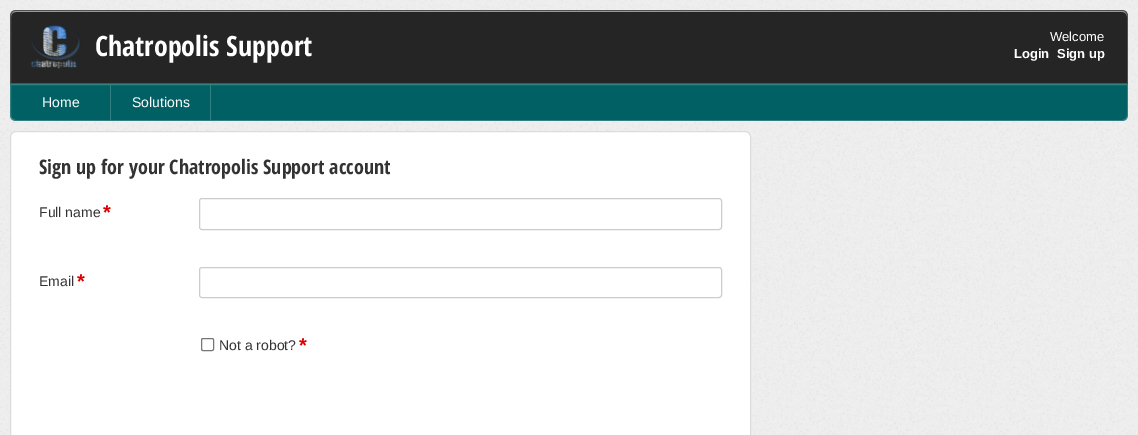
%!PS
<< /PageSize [1138 435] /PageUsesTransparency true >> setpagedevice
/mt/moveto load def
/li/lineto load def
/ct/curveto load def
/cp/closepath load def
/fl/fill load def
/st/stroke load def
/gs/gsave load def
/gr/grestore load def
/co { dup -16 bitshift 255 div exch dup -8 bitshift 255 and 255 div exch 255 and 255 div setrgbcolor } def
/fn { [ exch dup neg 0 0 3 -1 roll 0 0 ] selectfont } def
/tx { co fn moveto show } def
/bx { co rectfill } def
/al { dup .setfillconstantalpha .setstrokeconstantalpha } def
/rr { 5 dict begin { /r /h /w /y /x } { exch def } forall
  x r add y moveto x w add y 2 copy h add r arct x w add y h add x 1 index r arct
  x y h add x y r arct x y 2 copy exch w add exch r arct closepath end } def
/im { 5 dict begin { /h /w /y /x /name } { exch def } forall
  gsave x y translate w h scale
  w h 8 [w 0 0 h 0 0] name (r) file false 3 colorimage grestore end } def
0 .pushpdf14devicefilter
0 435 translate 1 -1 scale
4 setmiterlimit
0 0 1138 435 16#EFEFEF bx
(media/1.raw) 0 0 1138 435 im
16#252525 co
16 10 mt 1122 10 li 1125.5 10 1128 12.5 1128 16 ct 1128 84 li 10 84 li 10 16 li 10 12.5 12.5 10 16 10 ct cp fl
16#929292 co
16 12 mt 1122 12 li 1125 12 1127 14 1127 17 ct 1127 14 1125 11 1122 11 ct 16 11 li 13 11 11 14 11 17 ct 11 14 13 12 16 12 ct cp fl
0.2 al
16#FFFFFF co
16 10.5 mt 1122 10.5 li 1125 10.5 1127.5 13 1127.5 16 ct 1127.5 83.5 li 10.5 83.5 li 10.5 16 li 10.5 13 13 10.5 16 10.5 ct cp st
1 al
(media/2.raw) 31 24 50 45 im
16#006063 co
10 84 mt 1128 84 li 1128 115 li 1128 118.5 1125.5 121 1122 121 ct 16 121 li 12.5 121 10 118.5 10 115 ct cp fl
0.2 al
16#FFFFFF co
10.5 84.5 mt 1127.5 84.5 li 1127.5 115 li 1127.5 118 1125 120.5 1122 120.5 ct 16 120.5 li 13 120.5 10.5 118 10.5 115 ct cp st
1 al
110 85 1 35 16#338082 bx
210 85 1 35 16#338082 bx
16#FFFFFF co
10.5 131.5 740 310 5.5 rr gs fl gr
16#DCDCDC co
st
16#CCCCCC co
199.5 198.5 522 31 2.5 rr st
199.5 267.5 522 30 2.5 rr st
16#767676 co
201.5 338.5 12 12 1.5 rr st
(Chatropolis Support) 95 56 /OpenSansCondensed-Bold 28 16#FFFFFF tx
(Welcome) 1050 41 /LiberationSans-Regular 13 16#FFFFFF tx
(Login) 1014 58 /LiberationSans-Bold 13 16#FFFFFF tx
(Sign up) 1057 58 /LiberationSans-Bold 13 16#FFFFFF tx
(Home) 42 107 /LiberationSans-Regular 14 16#FFFFFF tx
(Solutions) 132 107 /LiberationSans-Regular 14 16#FFFFFF tx
(Sign up for your Chatropolis Support account) 39 174 /OpenSansCondensed-Bold 20 16#333333 tx
(Full name) 39 217 /LiberationSans-Regular 14 16#333333 tx
(*) 103 219 /LiberationSans-Bold 20 16#DD0000 tx
(Email) 39 286 /LiberationSans-Regular 14 16#333333 tx
(*) 77 288 /LiberationSans-Bold 20 16#DD0000 tx
(Not a robot?) 219 350 /LiberationSans-Regular 14 16#333333 tx
(*) 299 352 /LiberationSans-Bold 20 16#DD0000 tx
.poppdf14devicefilter showpage
